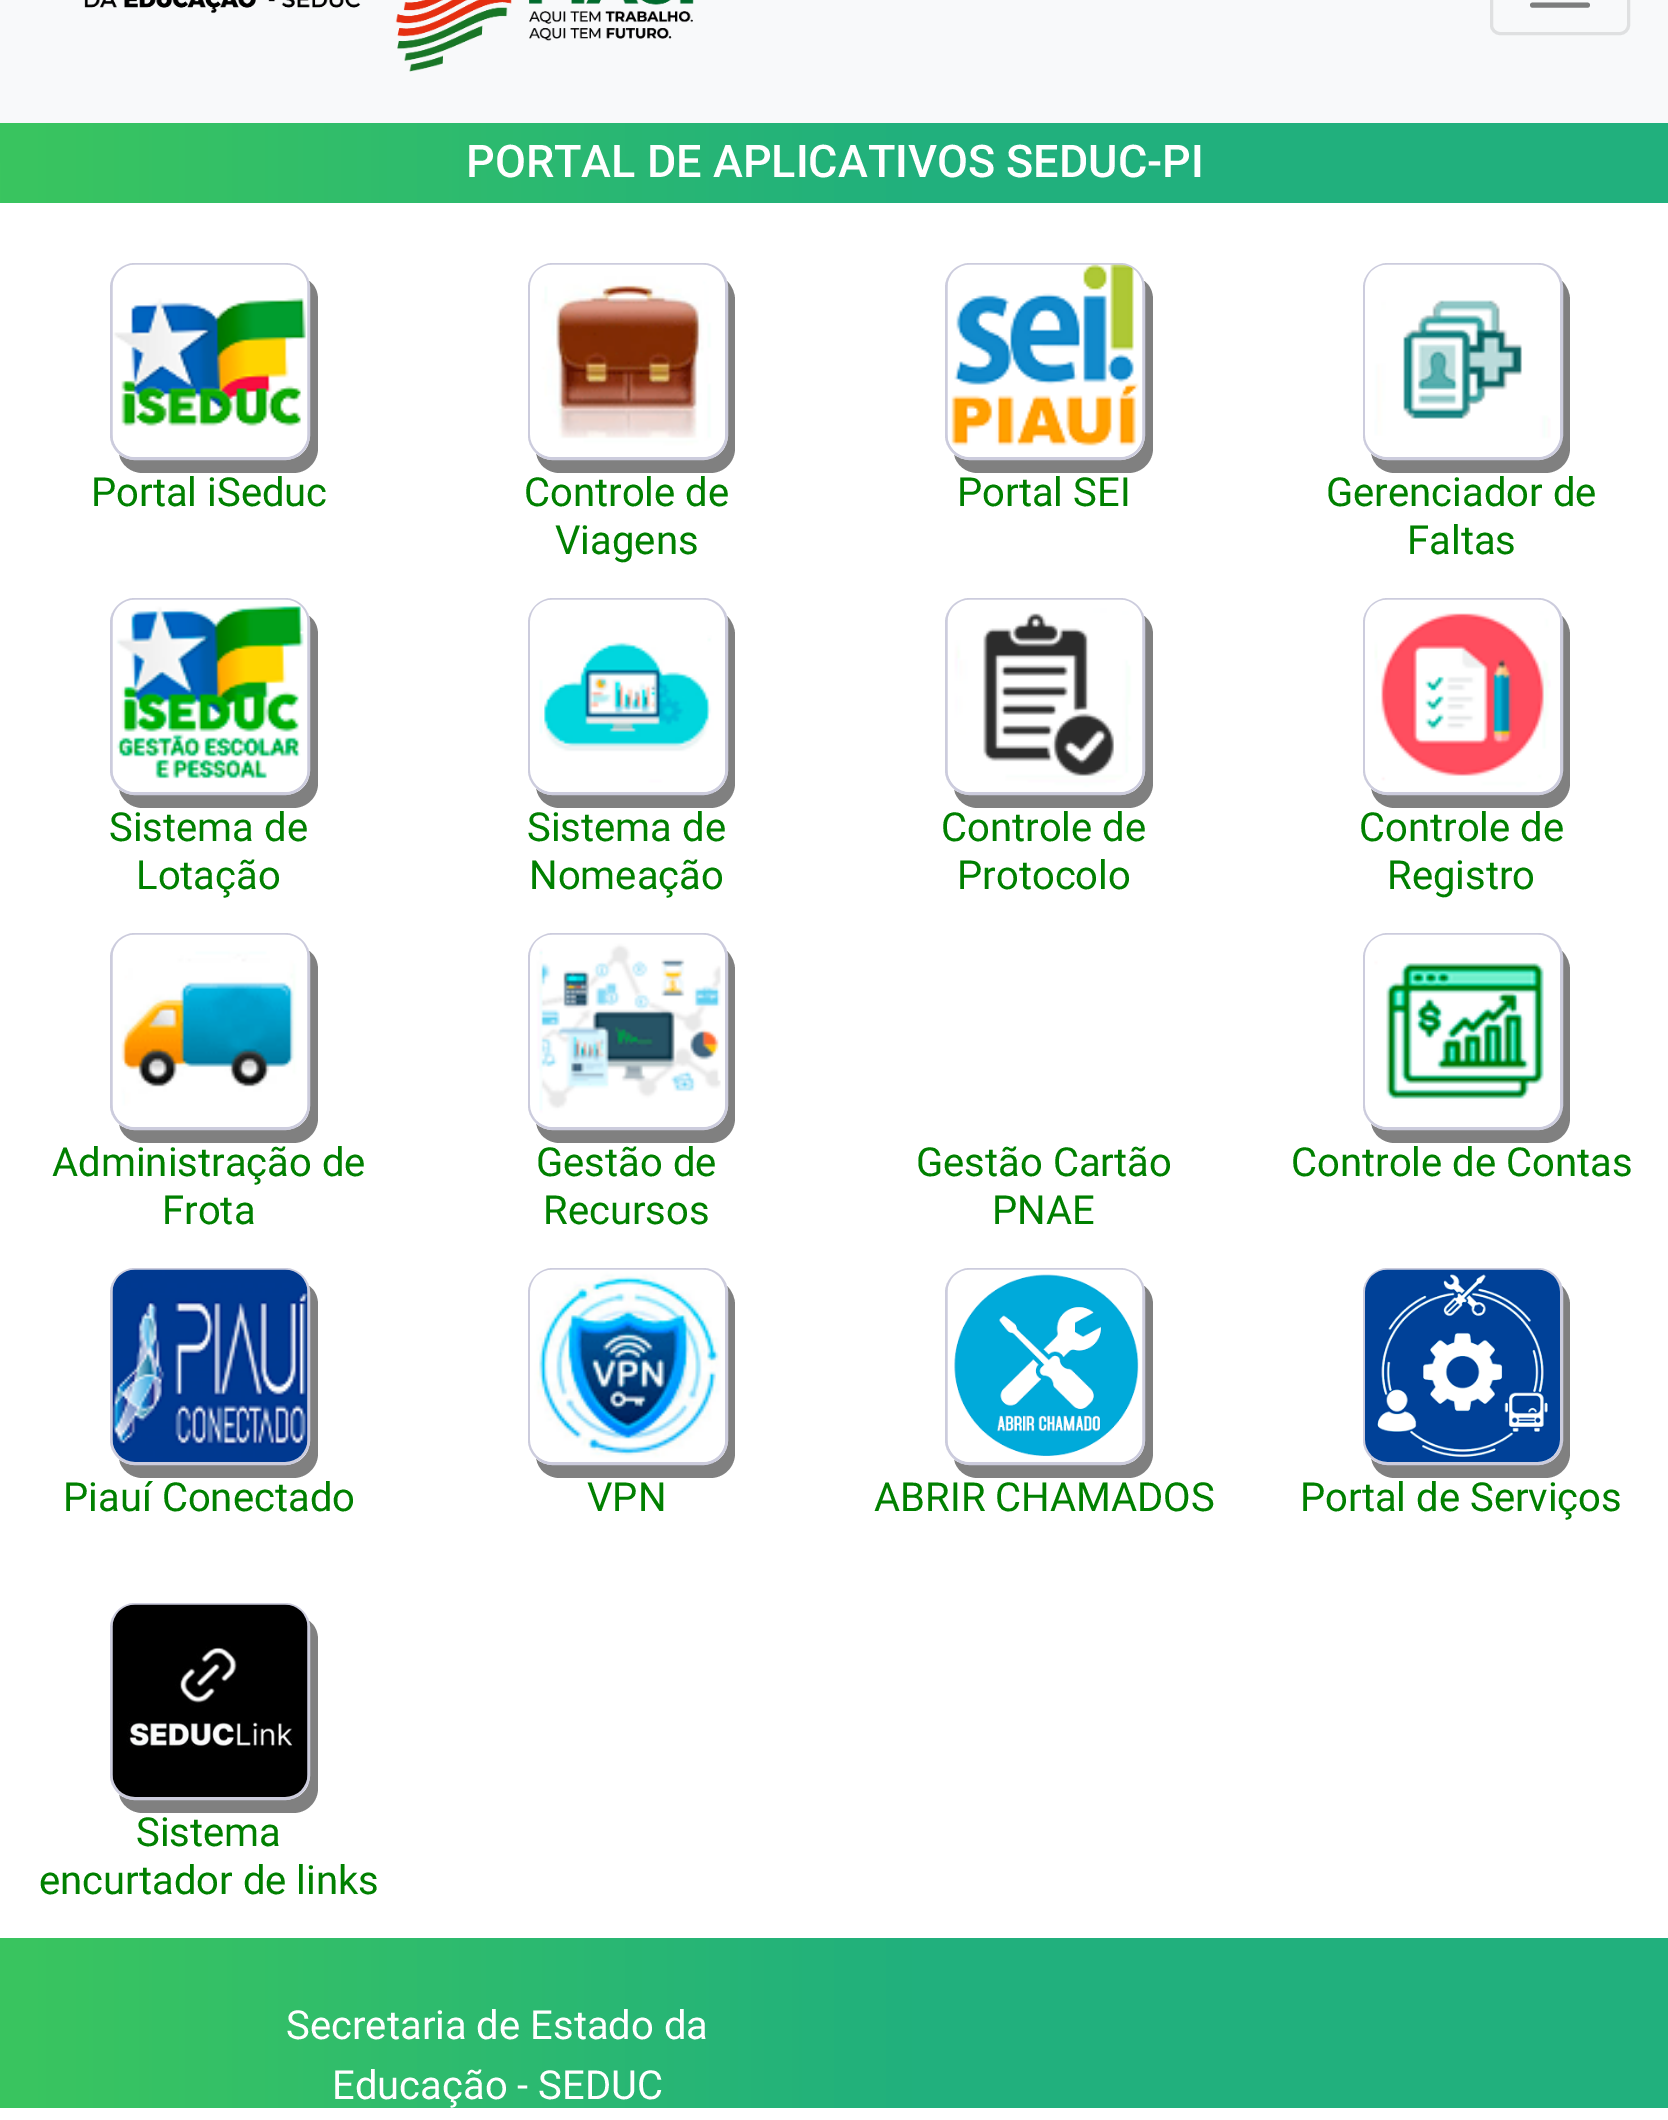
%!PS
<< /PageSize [1668 2120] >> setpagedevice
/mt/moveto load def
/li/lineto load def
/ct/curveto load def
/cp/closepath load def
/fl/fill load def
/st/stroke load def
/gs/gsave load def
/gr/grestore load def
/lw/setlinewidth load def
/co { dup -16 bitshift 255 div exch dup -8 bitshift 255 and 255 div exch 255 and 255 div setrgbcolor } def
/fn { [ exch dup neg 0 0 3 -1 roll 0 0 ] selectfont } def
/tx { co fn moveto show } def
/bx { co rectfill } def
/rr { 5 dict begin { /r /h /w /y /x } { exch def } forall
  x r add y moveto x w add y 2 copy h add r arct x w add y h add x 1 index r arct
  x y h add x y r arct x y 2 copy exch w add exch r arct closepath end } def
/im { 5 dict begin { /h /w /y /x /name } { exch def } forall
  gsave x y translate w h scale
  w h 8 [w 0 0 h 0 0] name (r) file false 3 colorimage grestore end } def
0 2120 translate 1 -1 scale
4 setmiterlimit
0 0 1668 2120 16#FFFFFF bx
0 0 1668 123 16#F8F9FA bx
(media/1.raw) 84 0 610 72 im
16#DFE0E1 co
3 lw
1491.5 -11.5 137 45 8.5 rr st
16#7C7D7D co
5 lw
1 setlinecap
1532.5 -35 mt 1587.5 -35 li 1532.5 -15 mt 1587.5 -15 li 1532.5 5 mt 1587.5 5 li st
gs 0 123 mt 1668 123 li 1668 203 li 0 203 li cp clip newpath
<< /ShadingType 2 /ColorSpace /DeviceRGB /Coords [0 163 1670 162] /Extend [true true] /Function << /FunctionType 3 /Domain [0 1] /Functions [<< /FunctionType 2 /Domain [0 1] /C0 [.227 .773 .373] /C1 [.129 .69 .49] /N 1 >> << /FunctionType 2 /Domain [0 1] /C0 [.129 .69 .49] /C1 [.129 .69 .49] /N 1 >>] /Bounds [.55] /Encode [0 1 0 1] >> >> shfill gr
16#808080 co
119 454 mt 121 465 131 473 143 473 ct 293 473 li 307 473 318 462 318 448 ct 318 300 li 318 292 315 285 309 281 ct 310 288 li 310 435 li 310 449 299 460 285 460 ct 135 460 li 129 460 123 458 119 454 ct cp fl
16#CCCCDD co
3 lw
0 setlinecap
111.5 264.5 197 194 23.5 rr st
(media/2.raw) 112 264 196 193 im
16#808080 co
536 453 mt 538 465 548 473 560 473 ct 710 473 li 724 473 735 462 735 448 ct 735 300 li 735 293 732 286 727 281 ct 728 288 li 728 435 li 728 449 716 460 702 460 ct 552 460 li 546 460 540 458 536 453 ct cp fl
16#FFFFFF co
529.5 264.5 197 194 23.5 rr gs fl gr
16#CCCCDD co
st
(media/3.raw) 530 264 195 193 im
16#808080 co
954 454 mt 956 465 966 473 978 473 ct 1128 473 li 1142 473 1153 462 1153 448 ct 1153 300 li 1153 292 1150 285 1144 281 ct 1145 288 li 1145 435 li 1145 449 1134 460 1120 460 ct 970 460 li 964 460 958 458 954 454 ct cp fl
16#CCCCDD co
946.5 264.5 197 194 23.5 rr st
(media/4.raw) 947 264 196 193 im
16#808080 co
1371 453 mt 1373 465 1383 473 1395 473 ct 1545 473 li 1559 473 1570 462 1570 448 ct 1570 300 li 1570 293 1567 286 1562 281 ct 1562 288 li 1562 435 li 1562 449 1551 460 1538 460 ct 1388 460 li 1381 460 1375 458 1371 453 ct cp fl
16#FFFFFF co
1364.5 264.5 197 194 23.5 rr gs fl gr
16#CCCCDD co
st
(media/5.raw) 1365 264 195 193 im
16#808080 co
119 789 mt 121 800 131 808 143 808 ct 293 808 li 307 808 318 797 318 783 ct 318 635 li 318 627 315 620 309 616 ct 310 622 li 310 770 li 310 784 299 795 285 795 ct 135 795 li 129 795 123 793 119 789 ct cp fl
16#CCCCDD co
111.5 599.5 197 194 23.5 rr st
(media/6.raw) 112 599 196 193 im
16#808080 co
536 788 mt 538 800 548 808 560 808 ct 710 808 li 724 808 735 797 735 783 ct 735 635 li 735 628 732 621 727 616 ct 728 622 li 728 770 li 728 784 716 795 702 795 ct 552 795 li 546 795 540 793 536 788 ct cp fl
16#FFFFFF co
529.5 599.5 197 194 23.5 rr gs fl gr
16#CCCCDD co
st
(media/7.raw) 530 599 195 193 im
16#808080 co
954 789 mt 956 800 966 808 978 808 ct 1128 808 li 1142 808 1153 797 1153 783 ct 1153 635 li 1153 627 1150 620 1144 616 ct 1145 622 li 1145 770 li 1145 784 1134 795 1120 795 ct 970 795 li 964 795 958 793 954 789 ct cp fl
16#CCCCDD co
946.5 599.5 197 194 23.5 rr st
(media/8.raw) 947 599 196 193 im
16#808080 co
1371 788 mt 1373 800 1383 808 1395 808 ct 1545 808 li 1559 808 1570 797 1570 783 ct 1570 635 li 1570 628 1567 621 1562 616 ct 1562 622 li 1562 770 li 1562 784 1551 795 1538 795 ct 1388 795 li 1381 795 1375 793 1371 788 ct cp fl
16#FFFFFF co
1364.5 599.5 197 194 23.5 rr gs fl gr
16#CCCCDD co
st
(media/9.raw) 1365 599 195 193 im
16#808080 co
119 1124 mt 121 1135 131 1143 143 1143 ct 293 1143 li 307 1143 318 1132 318 1118 ct 318 970 li 318 962 315 955 309 951 ct 310 958 li 310 1105 li 310 1119 299 1130 285 1130 ct 135 1130 li 129 1130 123 1128 119 1124 ct cp fl
16#CCCCDD co
111.5 934.5 197 194 23.5 rr st
(media/10.raw) 112 934 196 193 im
16#808080 co
536 1123 mt 538 1135 548 1143 560 1143 ct 710 1143 li 724 1143 735 1132 735 1118 ct 735 970 li 735 963 732 956 727 951 ct 728 958 li 728 1105 li 728 1119 716 1130 702 1130 ct 552 1130 li 546 1130 540 1128 536 1123 ct cp fl
16#FFFFFF co
529.5 934.5 197 194 23.5 rr gs fl gr
16#CCCCDD co
st
(media/11.raw) 530 934 195 193 im
16#808080 co
1371 1123 mt 1373 1135 1383 1143 1395 1143 ct 1545 1143 li 1559 1143 1570 1132 1570 1118 ct 1570 970 li 1570 963 1567 956 1562 951 ct 1562 958 li 1562 1105 li 1562 1119 1551 1130 1538 1130 ct 1388 1130 li 1381 1130 1375 1128 1371 1123 ct cp fl
16#FFFFFF co
1364.5 934.5 197 194 23.5 rr gs fl gr
16#CCCCDD co
st
(media/12.raw) 1365 934 195 193 im
16#808080 co
119 1459 mt 121 1470 131 1478 143 1478 ct 293 1478 li 307 1478 318 1467 318 1453 ct 318 1305 li 318 1297 315 1290 309 1286 ct 310 1292 li 310 1440 li 310 1454 299 1465 285 1465 ct 135 1465 li 129 1465 123 1463 119 1459 ct cp fl
16#CCCCDD co
111.5 1269.5 197 194 23.5 rr st
(media/13.raw) 112 1269 196 193 im
16#808080 co
536 1458 mt 538 1470 548 1478 560 1478 ct 710 1478 li 724 1478 735 1467 735 1453 ct 735 1305 li 735 1298 732 1291 727 1286 ct 728 1292 li 728 1440 li 728 1454 716 1465 702 1465 ct 552 1465 li 546 1465 540 1463 536 1458 ct cp fl
16#FFFFFF co
529.5 1269.5 197 194 23.5 rr gs fl gr
16#CCCCDD co
st
(media/14.raw) 530 1269 195 193 im
16#808080 co
954 1459 mt 956 1470 966 1478 978 1478 ct 1128 1478 li 1142 1478 1153 1467 1153 1453 ct 1153 1305 li 1153 1297 1150 1290 1144 1286 ct 1145 1292 li 1145 1440 li 1145 1454 1134 1465 1120 1465 ct 970 1465 li 964 1465 958 1463 954 1459 ct cp fl
16#CCCCDD co
946.5 1269.5 197 194 23.5 rr st
(media/15.raw) 947 1269 196 193 im
16#808080 co
1371 1458 mt 1373 1470 1383 1478 1395 1478 ct 1545 1478 li 1559 1478 1570 1467 1570 1453 ct 1570 1305 li 1570 1298 1567 1291 1562 1286 ct 1562 1292 li 1562 1440 li 1562 1454 1551 1465 1538 1465 ct 1388 1465 li 1381 1465 1375 1463 1371 1458 ct cp fl
16#FFFFFF co
1364.5 1269.5 197 194 23.5 rr gs fl gr
16#CCCCDD co
st
(media/16.raw) 1365 1269 195 193 im
16#808080 co
119 1794 mt 121 1805 131 1813 143 1813 ct 293 1813 li 307 1813 318 1802 318 1788 ct 318 1640 li 318 1632 315 1625 309 1621 ct 310 1628 li 310 1775 li 310 1789 299 1800 285 1800 ct 135 1800 li 129 1800 123 1798 119 1794 ct cp fl
16#CCCCDD co
111.5 1604.5 197 194 23.5 rr st
(media/17.raw) 112 1604 196 193 im
gs 0 1938 mt 1668 1938 li 1668 2108 li 0 2108 li cp clip newpath
<< /ShadingType 2 /ColorSpace /DeviceRGB /Coords [0 2023 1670 2023] /Extend [true true] /Function << /FunctionType 3 /Domain [0 1] /Functions [<< /FunctionType 2 /Domain [0 1] /C0 [.227 .773 .373] /C1 [.129 .69 .49] /N 1 >> << /FunctionType 2 /Domain [0 1] /C0 [.129 .69 .49] /C1 [.129 .69 .49] /N 1 >>] /Bounds [.55] /Encode [0 1 0 1] >> >> shfill gr
(PORTAL DE APLICATIVOS SEDUC-PI) 466 177 /Roboto-Medium 45 16#FFFFFF tx
(Portal iSeduc) 91 506 /Roboto-Regular 40 16#008000 tx
(Controle de) 524 506 /Roboto-Regular 40 16#008000 tx
(Viagens) 555 554 /Roboto-Regular 40 16#008000 tx
(Portal SEI) 957 506 /Roboto-Regular 40 16#008000 tx
(Gerenciador de) 1326 506 /Roboto-Regular 40 16#008000 tx
(Faltas) 1407 554 /Roboto-Regular 40 16#008000 tx
(Sistema de) 109 841 /Roboto-Regular 40 16#008000 tx
(Lotação) 136 889 /Roboto-Regular 40 16#008000 tx
(Sistema de) 527 841 /Roboto-Regular 40 16#008000 tx
(Nomeação) 529 889 /Roboto-Regular 40 16#008000 tx
(Controle de) 941 841 /Roboto-Regular 40 16#008000 tx
(Protocolo) 957 889 /Roboto-Regular 40 16#008000 tx
(Controle de) 1359 841 /Roboto-Regular 40 16#008000 tx
(Registro) 1387 889 /Roboto-Regular 40 16#008000 tx
(Administração de) 52 1176 /Roboto-Regular 40 16#008000 tx
(Frota) 162 1224 /Roboto-Regular 40 16#008000 tx
(Gestão de) 536 1176 /Roboto-Regular 40 16#008000 tx
(Recursos) 543 1224 /Roboto-Regular 40 16#008000 tx
(Gestão Cartão) 916 1176 /Roboto-Regular 40 16#008000 tx
(PNAE) 992 1224 /Roboto-Regular 40 16#008000 tx
(Controle de Contas) 1291 1176 /Roboto-Regular 40 16#008000 tx
(Piauí Conectado) 63 1511 /Roboto-Regular 40 16#008000 tx
(VPN) 587 1511 /Roboto-Regular 40 16#008000 tx
(ABRIR CHAMADOS) 874 1511 /Roboto-Regular 40 16#008000 tx
(Portal de Serviços) 1300 1511 /Roboto-Regular 40 16#008000 tx
(Sistema) 136 1846 /Roboto-Regular 40 16#008000 tx
(encurtador de links) 39 1894 /Roboto-Regular 40 16#008000 tx
(Secretaria de Estado da) 286 2039 /Roboto-Regular 40 16#FFFFFF tx
(Educação - SEDUC) 332 2099 /Roboto-Regular 40 16#FFFFFF tx
showpage
